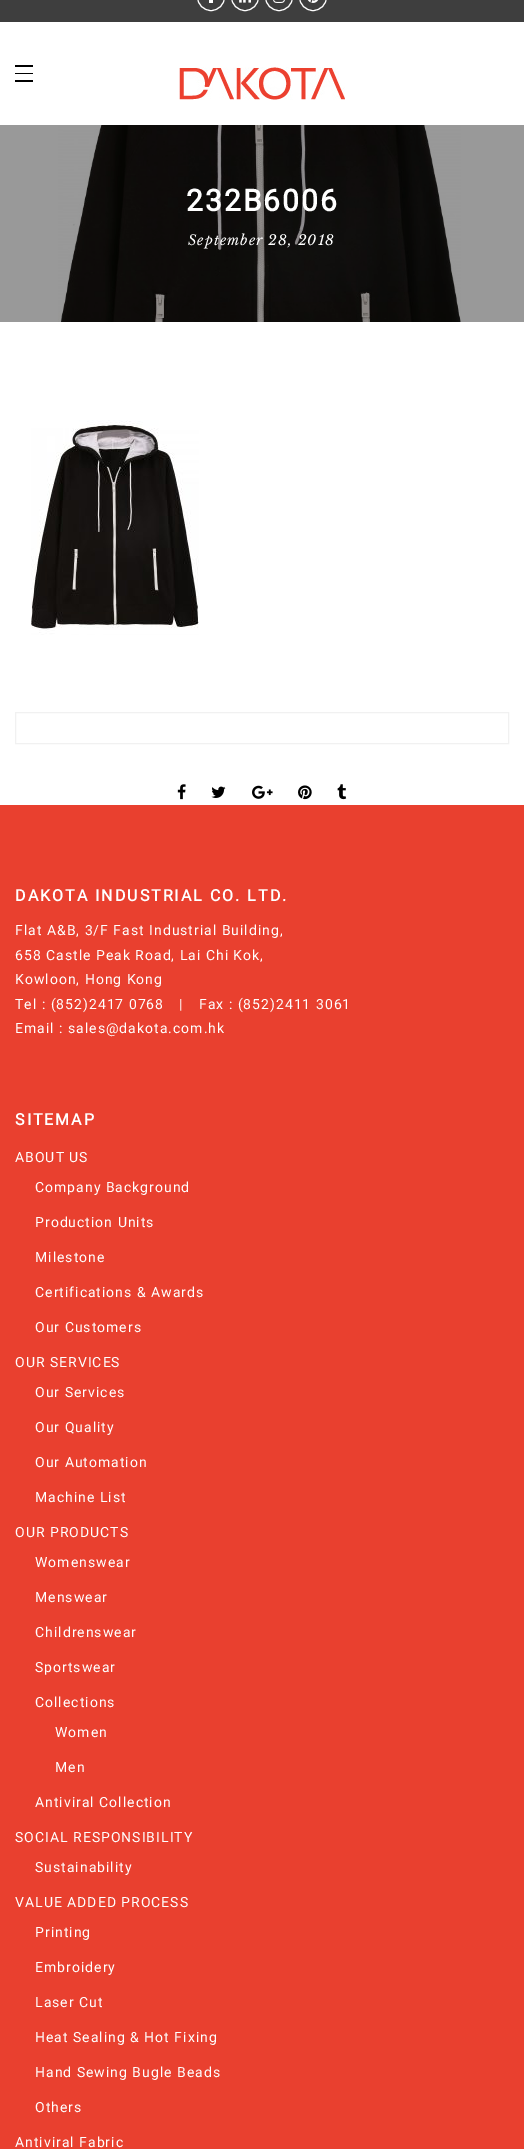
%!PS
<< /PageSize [524 2149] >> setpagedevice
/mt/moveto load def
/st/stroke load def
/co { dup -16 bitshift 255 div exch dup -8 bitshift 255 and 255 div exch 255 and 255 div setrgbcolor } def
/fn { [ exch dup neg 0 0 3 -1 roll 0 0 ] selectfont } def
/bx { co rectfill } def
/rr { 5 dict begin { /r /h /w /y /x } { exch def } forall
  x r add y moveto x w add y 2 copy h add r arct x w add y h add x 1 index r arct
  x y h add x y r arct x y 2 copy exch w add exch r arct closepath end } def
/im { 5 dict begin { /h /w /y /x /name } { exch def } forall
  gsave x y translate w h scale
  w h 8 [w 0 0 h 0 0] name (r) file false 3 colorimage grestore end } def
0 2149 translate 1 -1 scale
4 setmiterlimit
0 0 524 2149 16#FFFFFF bx
0 125 524 197 16#999999 bx
0 0 524 22 16#3E3E3E bx
16#FFFFFF co
197.5 -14.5 27 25 13.5 rr st
209 0 4 3 16#FFFFFF bx
231.5 -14.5 27 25 13.5 rr st
(media/1.raw) 239 0 12 3 im
265.5 -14.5 27 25 13.5 rr st
(media/2.raw) 273 0 12 3 im
299.5 -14.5 27 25 13.5 rr st
(media/3.raw) 307 0 12 3 im
15 65 18 2 16#000000 bx
15 73 18 1 16#000000 bx
15 80 18 2 16#000000 bx
(media/4.raw) 179 67 166 33 im
(media/5.raw) 58 125 403 197 im
(media/6.raw) 31 420 168 215 im
16#F1F1F1 co
15.5 712.5 493 31 rectstroke
(media/7.raw) 177 784 9 16 im
(media/8.raw) 211 786 15 12 im
(media/9.raw) 252 785 21 14 im
(media/10.raw) 298 785 14 15 im
(media/11.raw) 337 784 10 16 im
0 805 524 1344 16#E9402F bx
/Roboto-Bold 30 fn
16#FFFFFF co
186 211 mt 2 0 (232B6006) ashow
/LibreBaskerville-Italic 14 fn
188 245 mt 1 0 (September 28, 2018) ashow
/Roboto-Bold 16 fn
15 901 mt 2 0 (DAKOTA INDUSTRIAL CO. LTD.) ashow
/Roboto-Regular 14 fn
15 935 mt 1 0 (Flat A&B, 3/F Fast Industrial Building,) ashow
15 960 mt 1 0 (658 Castle Peak Road, Lai Chi Kok,) ashow
15 984 mt 1 0 (Kowloon, Hong Kong) ashow
15 1009 mt 1 0 (Tel : \(852\)2417 0768) ashow
179 1009 mt 1 0 (|) ashow
199 1009 mt 1 0 (Fax : \(852\)2411 3061) ashow
15 1033 mt 1 0 (Email : sales@dakota.com.hk) ashow
/Roboto-Bold 16 fn
15 1125 mt 2 0 (SITEMAP) ashow
/Roboto-Regular 14 fn
15 1162 mt 1 0 (ABOUT US) ashow
35 1192 mt 1 0 (Company Background) ashow
35 1227 mt 1 0 (Production Units) ashow
35 1262 mt 1 0 (Milestone) ashow
35 1297 mt 1 0 (Certifications & Awards) ashow
35 1332 mt 1 0 (Our Customers) ashow
15 1367 mt 1 0 (OUR SERVICES) ashow
35 1397 mt 1 0 (Our Services) ashow
35 1432 mt 1 0 (Our Quality) ashow
35 1467 mt 1 0 (Our Automation) ashow
35 1502 mt 1 0 (Machine List) ashow
15 1537 mt 1 0 (OUR PRODUCTS) ashow
35 1567 mt 1 0 (Womenswear) ashow
35 1602 mt 1 0 (Menswear) ashow
35 1637 mt 1 0 (Childrenswear) ashow
35 1672 mt 1 0 (Sportswear) ashow
35 1707 mt 1 0 (Collections) ashow
55 1737 mt 1 0 (Women) ashow
55 1772 mt 1 0 (Men) ashow
35 1807 mt 1 0 (Antiviral Collection) ashow
15 1842 mt 1 0 (SOCIAL RESPONSIBILITY) ashow
35 1872 mt 1 0 (Sustainability) ashow
15 1907 mt 1 0 (VALUE ADDED PROCESS) ashow
35 1937 mt 1 0 (Printing) ashow
35 1972 mt 1 0 (Embroidery) ashow
35 2007 mt 1 0 (Laser Cut) ashow
35 2042 mt 1 0 (Heat Sealing & Hot Fixing) ashow
35 2077 mt 1 0 (Hand Sewing Bugle Beads) ashow
35 2112 mt 1 0 (Others) ashow
15 2147 mt 1 0 (Antiviral Fabric) ashow
showpage
